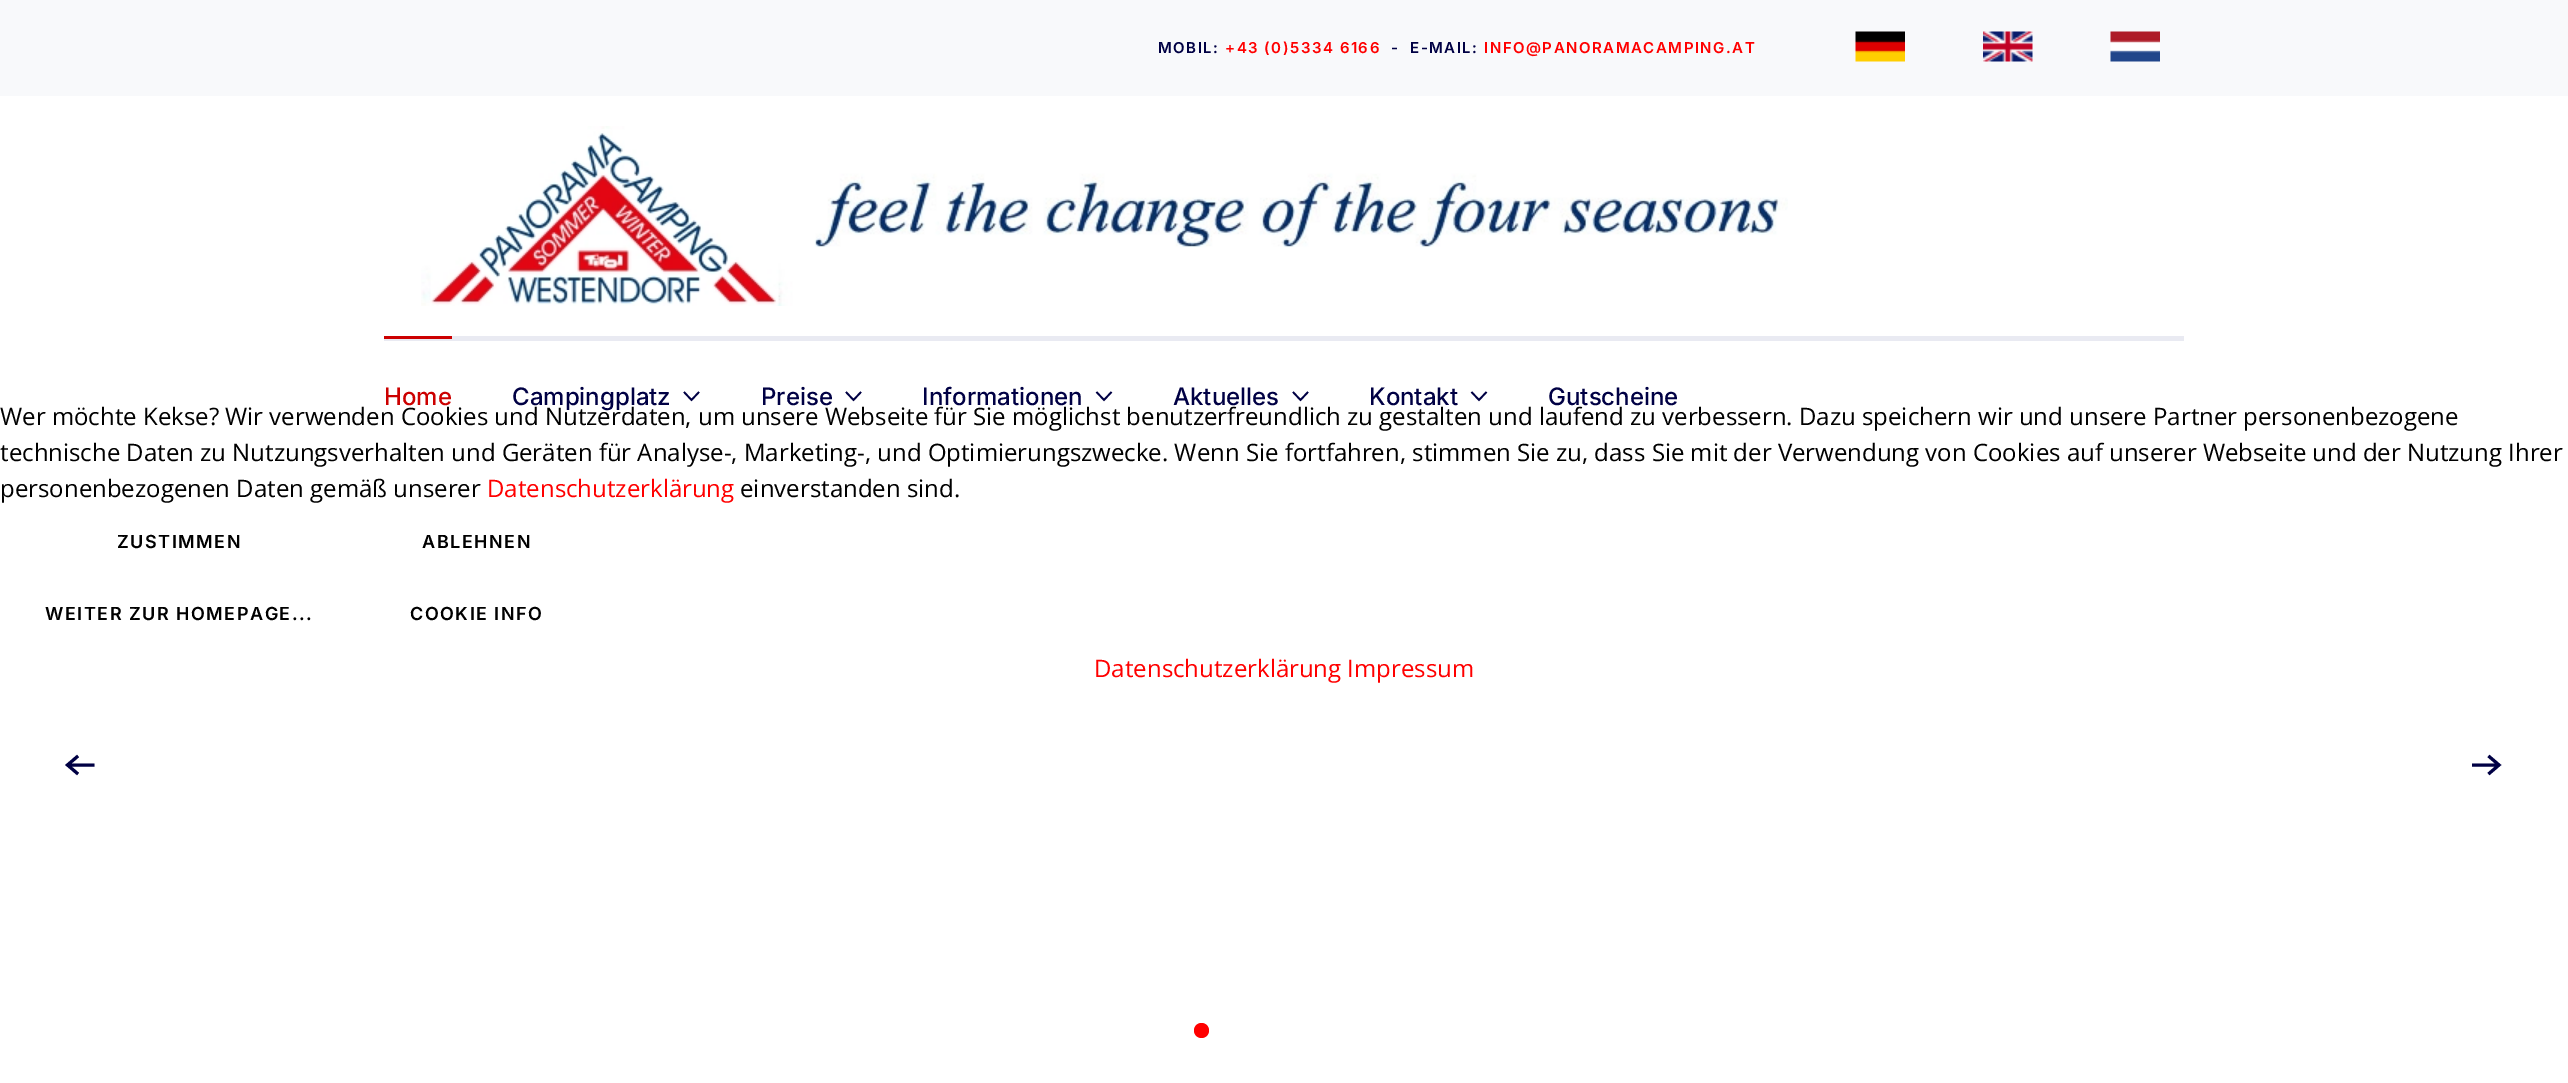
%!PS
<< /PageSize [2568 1083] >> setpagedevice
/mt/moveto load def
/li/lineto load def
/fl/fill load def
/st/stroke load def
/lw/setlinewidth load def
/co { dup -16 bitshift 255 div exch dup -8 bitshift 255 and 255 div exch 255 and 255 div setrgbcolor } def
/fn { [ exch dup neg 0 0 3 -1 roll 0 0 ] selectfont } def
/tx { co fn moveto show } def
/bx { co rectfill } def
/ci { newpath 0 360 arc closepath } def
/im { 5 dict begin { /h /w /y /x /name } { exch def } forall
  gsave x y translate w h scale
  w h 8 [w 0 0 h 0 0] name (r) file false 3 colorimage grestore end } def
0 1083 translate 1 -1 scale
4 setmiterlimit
0 0 2568 1083 16#FFFFFF bx
0 0 2568 96 16#F8F9FB bx
(media/1.raw) 1855 31 50 31 im
(media/2.raw) 1983 31 50 31 im
(media/3.raw) 2110 31 50 31 im
(media/4.raw) 421 126 1367 180 im
384 336 1800 5 16#E9EAF2 bx
384 336 68 3 16#CC0000 bx
16#000044 co
1.7 lw
684 392 mt 691.5 400 li 699 392 li st
846 392 mt 853.5 400 li 861 392 li st
1096.5 392 mt 1104 400 li 1111.5 392 li st
1293 392 mt 1300.5 400 li 1308 392 li st
1471.5 392 mt 1479 400 li 1486.5 392 li st
3 lw
78 756 mt 67.5 765 li 78 774 li 67.5 765 mt 94.5 765 li st
2488.5 756 mt 2499 765 li 2488.5 774 li 2472 765 mt 2499 765 li st
16#FF0000 co
1201.5 1030.5 7.5 ci fl
/Inter-SemiBold 15 fn
16#000044 co
1158 53 mt 1.5 0 (MOBIL:) ashow
16#FF0000 co
1225 53 mt 1.5 0 (+43 \(0\)5334 6166) ashow
16#000044 co
1391 53 mt 1.5 0 (-  E-MAIL:) ashow
16#FF0000 co
1484 53 mt 1.5 0 (INFO@PANORAMACAMPING.AT) ashow
(Home) 384 405 /Inter-Medium 24 16#CC0000 tx
(Campingplatz) 512 405 /Inter-Medium 24 16#000044 tx
(Preise) 761 405 /Inter-Medium 24 16#000044 tx
(Informationen) 922 405 /Inter-Medium 24 16#000044 tx
(Aktuelles) 1173 405 /Inter-Medium 24 16#000044 tx
(Kontakt) 1369 405 /Inter-Medium 24 16#000044 tx
(Gutscheine) 1548 405 /Inter-Medium 24 16#000044 tx
(Wer möchte Kekse? Wir verwenden Cookies und Nutzerdaten, um unsere Webseite für Sie möglichst benutzerfreundlich zu gestalten und laufend zu verbessern. Dazu speichern wir und unsere Partner personenbezogene) 0 425 /OpenSans-Regular 24 16#000000 tx
(technische Daten zu Nutzungsverhalten und Geräten für Analyse-, Marketing-, und Optimierungszwecke. Wenn Sie fortfahren, stimmen Sie zu, dass Sie mit der Verwendung von Cookies auf unserer Webseite und der Nutzung Ihrer) 0 461 /OpenSans-Regular 24 16#000000 tx
(personenbezogenen Daten gemäß unserer) 0 497 /OpenSans-Regular 24 16#000000 tx
(Datenschutzerklärung) 487 497 /OpenSans-Regular 24 16#FF0000 tx
(einverstanden sind.) 740 497 /OpenSans-Regular 24 16#000000 tx
/Inter-SemiBold 18 fn
117 548 mt 1.5 0 (ZUSTIMMEN) ashow
45 620 mt 1.5 0 (WEITER ZUR HOMEPAGE...) ashow
422 548 mt 1.5 0 (ABLEHNEN) ashow
410 620 mt 1.5 0 (COOKIE INFO) ashow
(Datenschutzerklärung Impressum) 1094 677 /OpenSans-Regular 24 16#FF0000 tx
showpage
